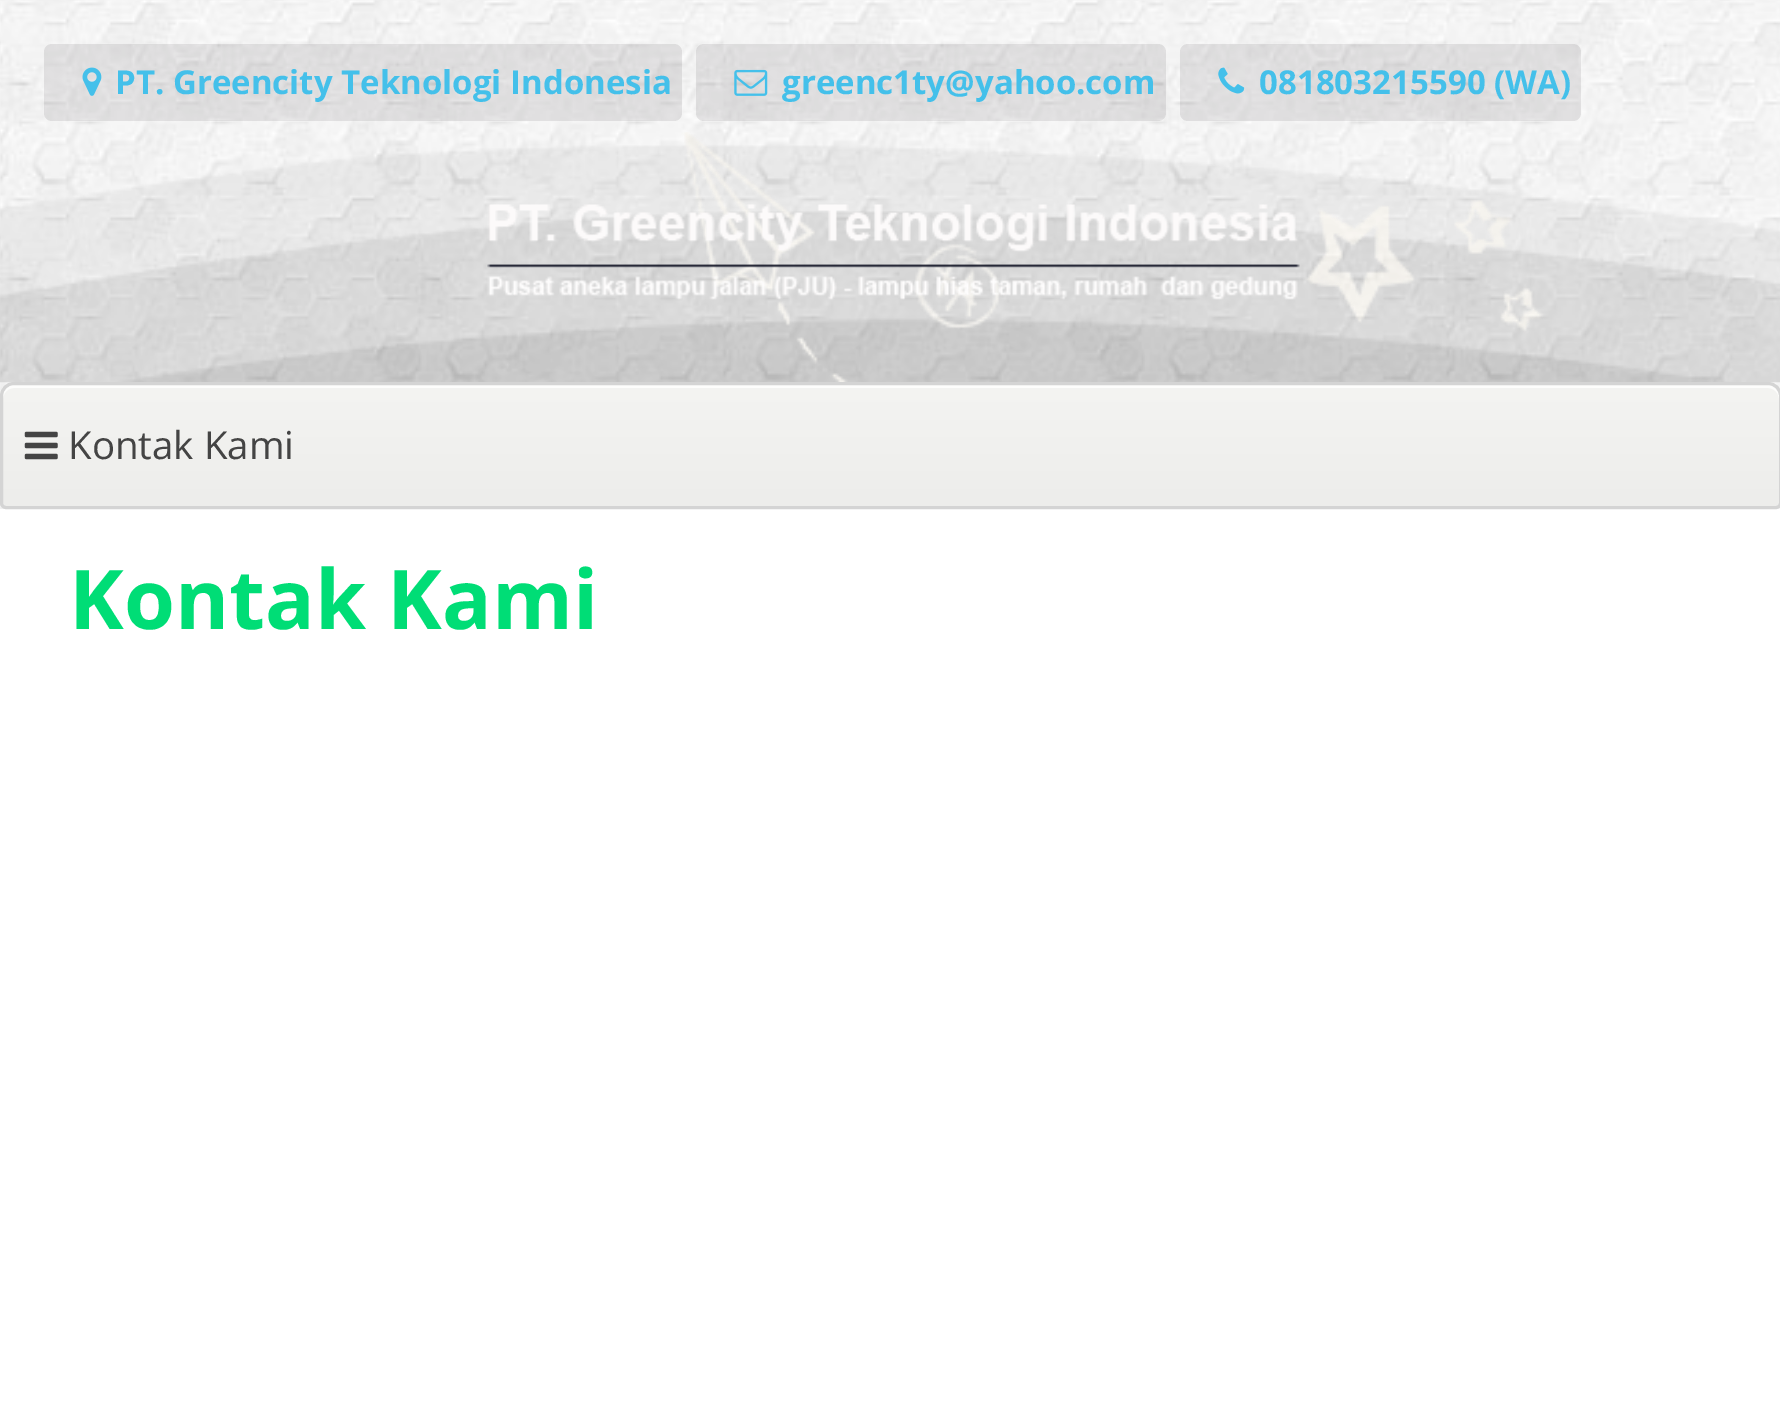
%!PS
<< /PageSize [1780 1404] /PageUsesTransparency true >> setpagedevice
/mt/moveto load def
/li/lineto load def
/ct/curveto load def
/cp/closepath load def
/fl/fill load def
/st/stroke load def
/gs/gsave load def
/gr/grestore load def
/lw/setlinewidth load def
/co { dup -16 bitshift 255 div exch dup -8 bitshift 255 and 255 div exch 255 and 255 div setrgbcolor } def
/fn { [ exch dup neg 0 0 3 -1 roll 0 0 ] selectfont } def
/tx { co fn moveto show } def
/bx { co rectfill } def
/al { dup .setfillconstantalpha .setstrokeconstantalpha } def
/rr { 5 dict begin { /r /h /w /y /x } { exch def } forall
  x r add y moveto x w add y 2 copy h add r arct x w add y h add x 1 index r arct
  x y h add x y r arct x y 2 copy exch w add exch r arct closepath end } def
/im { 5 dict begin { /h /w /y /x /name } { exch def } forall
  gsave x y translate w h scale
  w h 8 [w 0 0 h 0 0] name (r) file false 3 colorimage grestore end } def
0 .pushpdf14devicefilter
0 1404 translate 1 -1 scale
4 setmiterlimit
0 0 1780 1404 16#FFFFFF bx
(media/1.raw) 0 0 1780 509 im
(media/2.raw) 0 132 1780 251 im
0.1 al
16#272027 co
44 44 638 77 8 rr fl
1 al
(media/3.raw) 82 67 20 29 im
0.1 al
696 44 470 77 8 rr fl
1 al
(media/4.raw) 734 69 34 27 im
0.1 al
1180 44 401 77 8 rr fl
1 al
(media/5.raw) 1218 67 27 27 im
(media/6.raw) 487 204 813 96 im
gs
14 382 mt 1768 382 li 1775.5 382 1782 388.5 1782 396 ct 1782 503 li 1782 506.5 1779.5 509 1776 509 ct 6 509 li 2.5 509 0 506.5 0 503 ct 0 396 li 0 388.5 6.5 382 14 382 ct cp clip newpath
gs 0 385 mt 1780 385 li 1780 506 li 0 506 li cp clip newpath
<< /ShadingType 2 /ColorSpace /DeviceRGB /Coords [891 385 891 506] /Extend [true true] /Function << /FunctionType 2 /Domain [0 1] /C0 [.957 .957 .949] /C1 [.929 .929 .922] /N 1 >> >> shfill gr
gr
16#FDFDFC co
14 388 mt 1768 388 li 1774 388 1779 393 1779 399 ct 1779 396 li 1779 390 1774 385 1768 385 ct 14 385 li 8 385 3 390 3 396 ct 3 399 li 3 393 8 388 14 388 ct cp fl
16#D4D4D4 co
3 lw
14 383.5 mt 1768 383.5 li 1775 383.5 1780.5 389 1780.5 396 ct 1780.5 503 li 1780.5 505.5 1778.5 507.5 1776 507.5 ct 6 507.5 li 3.5 507.5 1.5 505.5 1.5 503 ct 1.5 396 li 1.5 389 7 383.5 14 383.5 ct cp st
(media/7.raw) 24 431 34 29 im
(PT. Greencity Teknologi Indonesia) 115 94 /OpenSans-Bold 33 16#44C0EA tx
(greenc1ty@yahoo.com) 782 94 /OpenSans-Bold 33 16#44C0EA tx
(081803215590 \(WA\)) 1259 94 /OpenSans-Bold 33 16#44C0EA tx
(Kontak Kami) 68 459 /OpenSans-Regular 38.5 16#444444 tx
(Kontak Kami) 69 629 /OpenSans-Bold 82.5 16#00DD76 tx
.poppdf14devicefilter showpage
